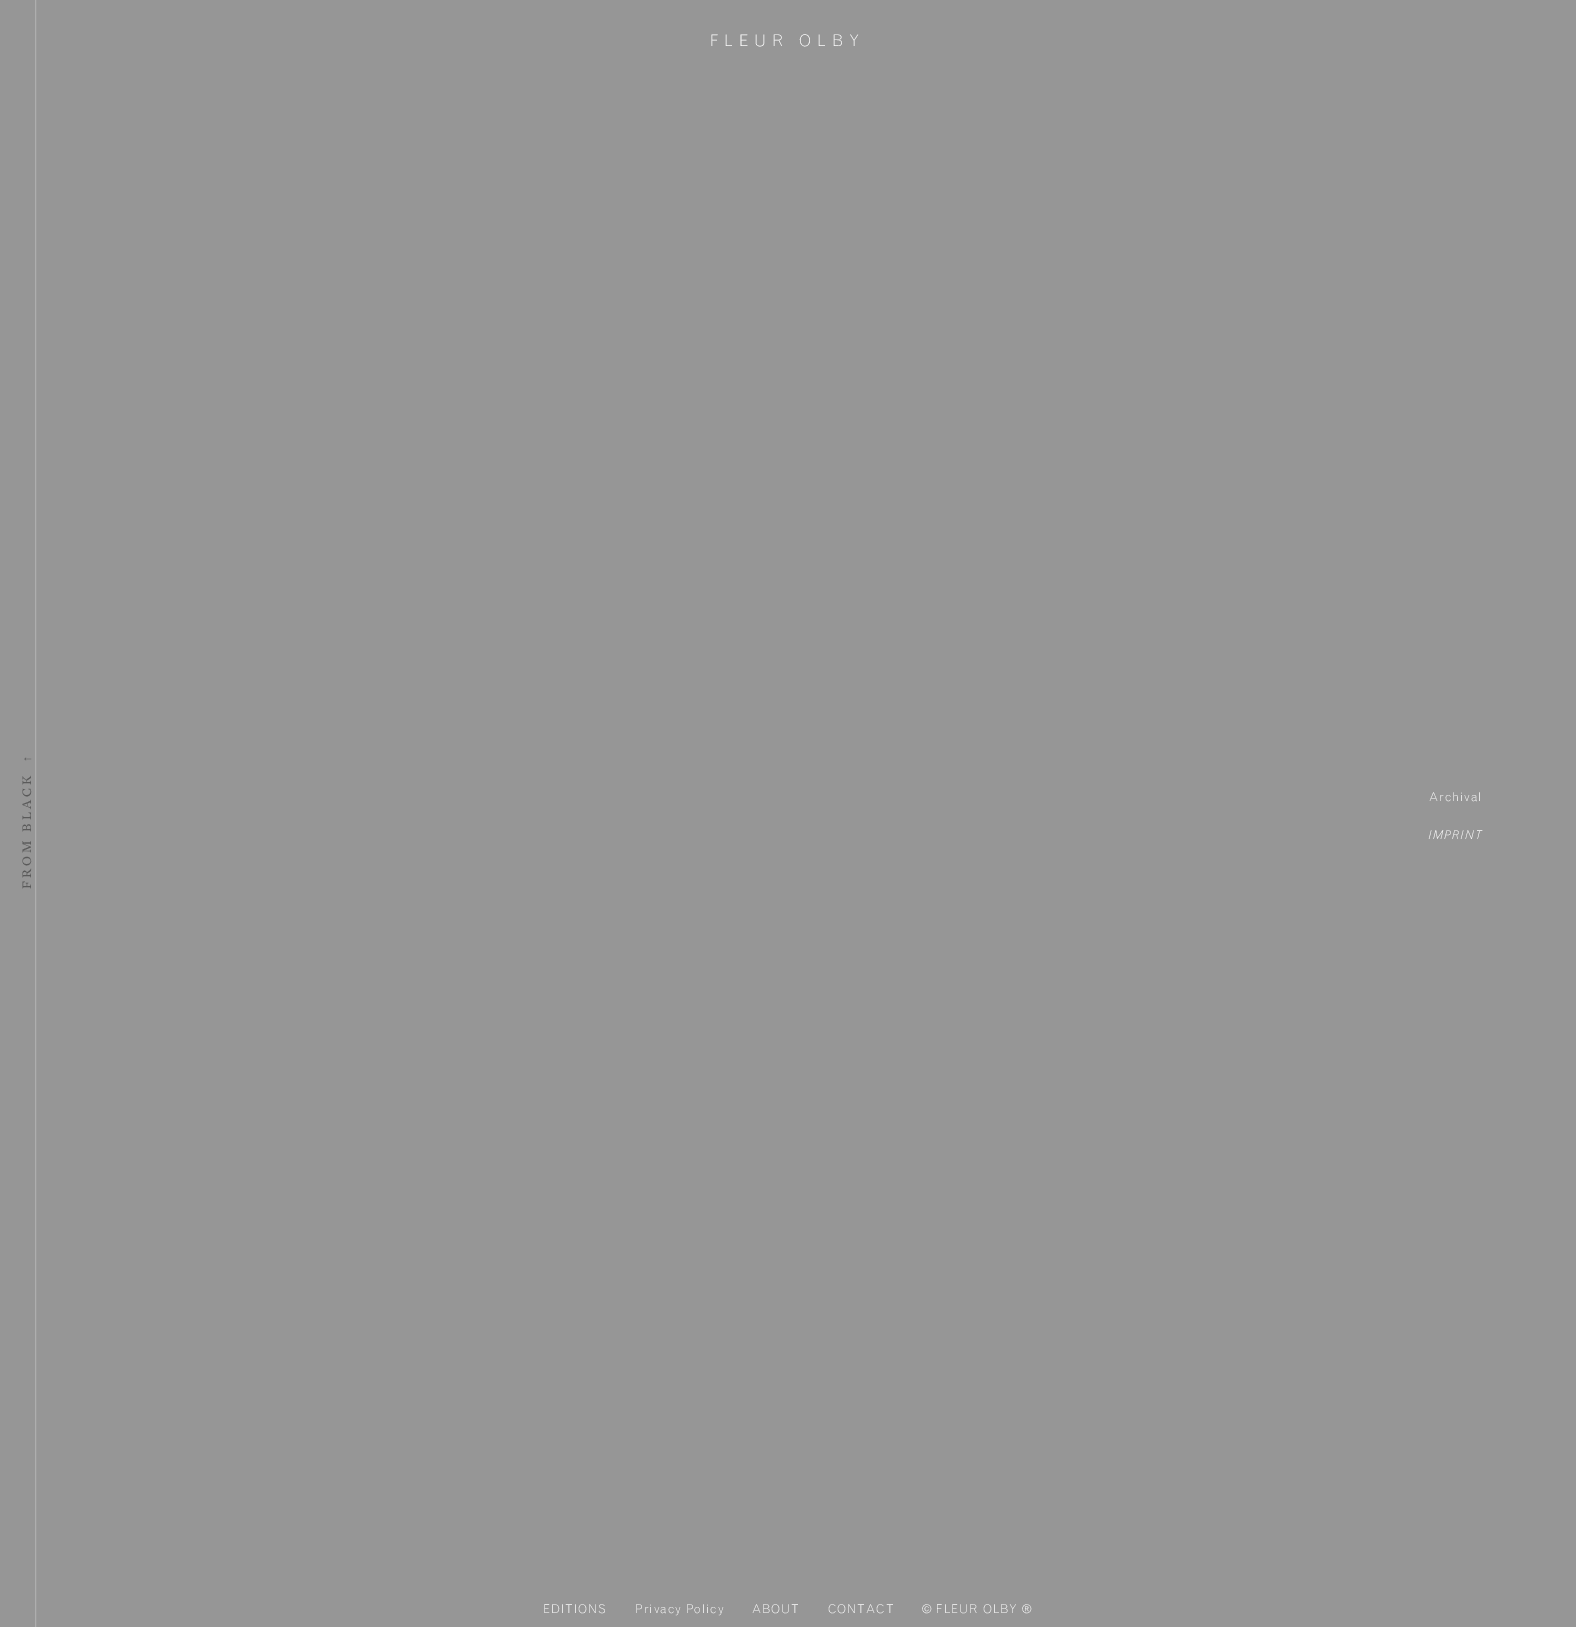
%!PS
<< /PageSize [1576 1627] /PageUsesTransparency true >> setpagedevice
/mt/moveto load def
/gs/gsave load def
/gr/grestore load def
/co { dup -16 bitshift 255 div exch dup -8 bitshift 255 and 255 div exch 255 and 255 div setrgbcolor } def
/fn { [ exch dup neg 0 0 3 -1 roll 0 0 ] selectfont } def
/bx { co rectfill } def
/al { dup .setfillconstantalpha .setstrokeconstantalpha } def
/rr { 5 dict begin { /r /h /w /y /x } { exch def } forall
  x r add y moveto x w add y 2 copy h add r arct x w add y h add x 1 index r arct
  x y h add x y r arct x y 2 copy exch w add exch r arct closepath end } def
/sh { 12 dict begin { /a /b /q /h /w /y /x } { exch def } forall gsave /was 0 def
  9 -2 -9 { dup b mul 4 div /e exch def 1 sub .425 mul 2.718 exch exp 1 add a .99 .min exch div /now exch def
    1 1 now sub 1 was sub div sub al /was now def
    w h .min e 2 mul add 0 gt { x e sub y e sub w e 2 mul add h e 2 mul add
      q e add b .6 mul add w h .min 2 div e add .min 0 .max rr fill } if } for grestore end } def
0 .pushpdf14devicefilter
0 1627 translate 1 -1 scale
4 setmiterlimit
0 0 1576 1627 16#969696 bx
gs
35 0 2 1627 rectclip
16#FFFFFF co
-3 0 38 1627 0 1 .75 sh
gr
/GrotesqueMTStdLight-Regular 16 fn
16#FFFFFF co
710 46 mt 6 0 (FLEUR OLBY) ashow
/LiberationSerif-Regular 12 fn
16#5A5A5A co
gs 31 762 translate -90 rotate 0 0 mt 3 0 (↑) ashow gr
/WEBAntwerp-Regular 12 fn
gs 31 889 translate -90 rotate 0 0 mt 3 0 (FROM BLACK) ashow gr
/GrotesqueMTStdLight-Regular 12 fn
16#FFFFFF co
1429 801 mt 1 0 (Archival) ashow
/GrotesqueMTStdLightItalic-Regular 12 fn
1428 839 mt 1 0 (IMPRINT) ashow
/GrotesqueMTStdLight-Regular 12 fn
543 1613 mt 1 0 (EDITIONS) ashow
635 1613 mt 1 0 (Privacy Policy) ashow
752 1613 mt 1 0 (ABOUT) ashow
828 1613 mt 1 0 (CONTACT) ashow
922 1613 mt 1 0 (© FLEUR OLBY ®) ashow
.poppdf14devicefilter showpage
